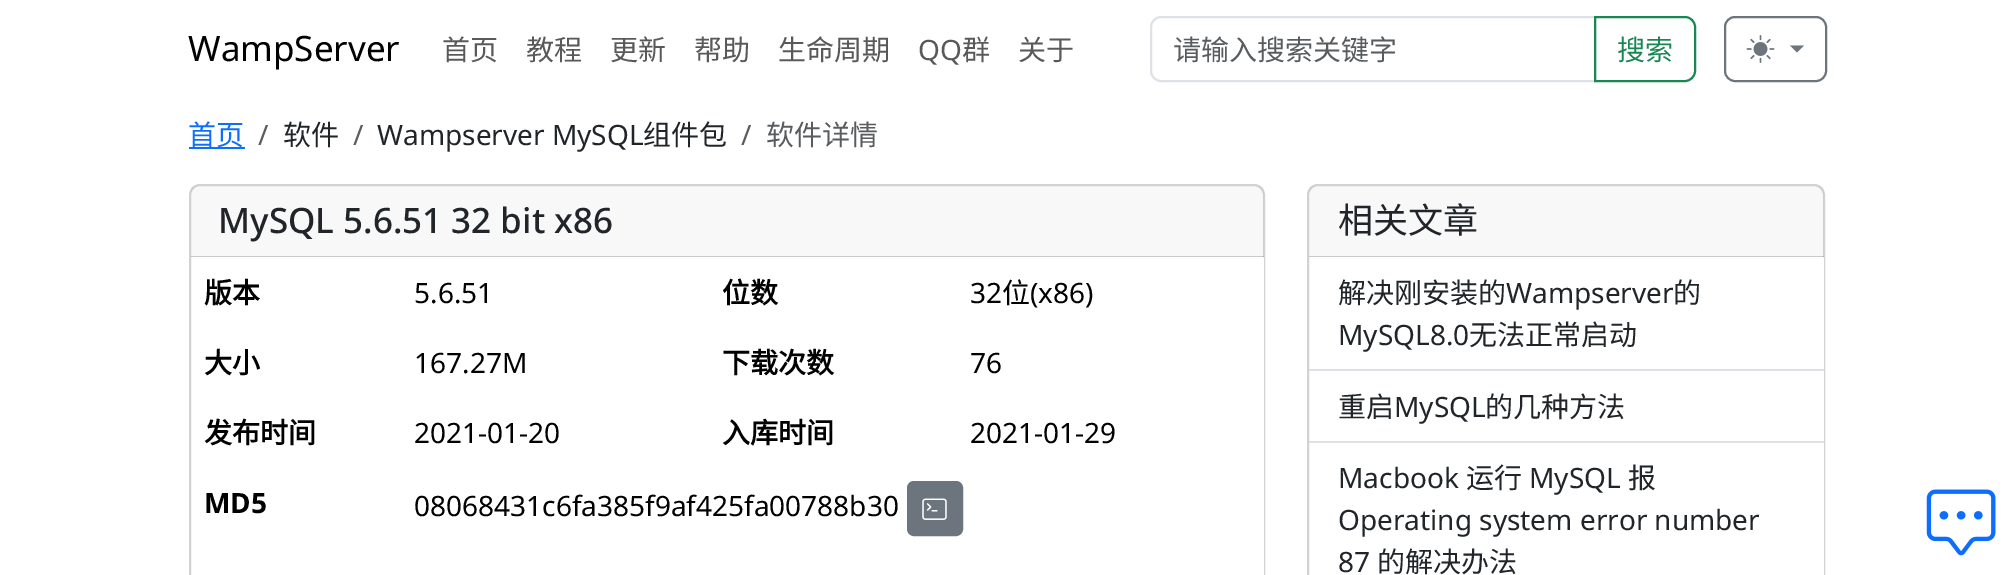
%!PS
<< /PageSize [2013 575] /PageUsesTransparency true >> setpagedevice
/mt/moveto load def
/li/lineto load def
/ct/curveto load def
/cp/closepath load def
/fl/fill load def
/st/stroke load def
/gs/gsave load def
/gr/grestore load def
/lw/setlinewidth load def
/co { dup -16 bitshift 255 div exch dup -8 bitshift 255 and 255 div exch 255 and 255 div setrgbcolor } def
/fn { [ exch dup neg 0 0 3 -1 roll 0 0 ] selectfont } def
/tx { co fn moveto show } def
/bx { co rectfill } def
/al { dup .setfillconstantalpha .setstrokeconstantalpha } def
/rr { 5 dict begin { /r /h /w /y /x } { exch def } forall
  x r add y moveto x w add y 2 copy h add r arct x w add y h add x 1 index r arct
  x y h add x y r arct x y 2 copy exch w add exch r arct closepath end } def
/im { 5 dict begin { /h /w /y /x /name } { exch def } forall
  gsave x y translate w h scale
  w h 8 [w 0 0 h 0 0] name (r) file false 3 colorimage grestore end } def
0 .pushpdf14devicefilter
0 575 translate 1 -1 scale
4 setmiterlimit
0 0 2013 575 16#FFFFFF bx
16#DEE2E6 co
2 lw
1161 17 mt 1595 17 li 1595 81 li 1161 81 li 1155.5 81 1151 76.5 1151 71 ct 1151 27 li 1151 21.5 1155.5 17 1161 17 ct cp st
16#198754 co
1595 17 mt 1685 17 li 1690.5 17 1695 21.5 1695 27 ct 1695 71 li 1695 76.5 1690.5 81 1685 81 ct 1595 81 li cp st
16#6C757D co
1725 17 101 64 10 rr st
(media/1.raw) 1746 35 29 28 im
1790 45.5 mt 1804 45.5 li 1797 52.5 li cp fl
189 147 56 2 16#0D6EFD bx
16#D2D2D2 co
190 185 1074 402 10 rr st
0.03 al
191 186 1073 71 16#212529 bx
0.18 al
191 256 1073 1 16#000000 bx
1 al
1263 257 1 318 16#FFFFFF bx
16#6C757D co
908 482 54 53 6 rr gs fl gr
st
(media/2.raw) 922 498 25 22 im
16#D2D2D2 co
1308 185 516 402 10 rr st
0.03 al
1309 186 515 71 16#212529 bx
0.18 al
1309 256 515 1 16#000000 bx
1 al
1823 257 1 112 16#FFFFFF bx
1309 369 515 2 16#DEE2E6 bx
1823 371 1 70 16#FFFFFF bx
1309 441 515 2 16#DEE2E6 bx
1823 443 1 132 16#FFFFFF bx
(media/3.raw) 1926 489 70 67 im
(WampServer) 188 61 /NotoSans-Regular 35 16#000000 tx
(首页) 442 60 /NotoSansCJKSC-Regular 28 16#595959 tx
(教程) 526 60 /NotoSansCJKSC-Regular 28 16#595959 tx
(更新) 610 60 /NotoSansCJKSC-Regular 28 16#595959 tx
(帮助) 694 60 /NotoSansCJKSC-Regular 28 16#595959 tx
(生命周期) 778 60 /NotoSansCJKSC-Regular 28 16#595959 tx
(QQ) 918 60 /NotoSans-Regular 28 16#595959 tx
(群) 962 60 /NotoSansCJKSC-Regular 28 16#595959 tx
(关于) 1018 60 /NotoSansCJKSC-Regular 28 16#595959 tx
(请输入搜索关键字) 1173 60 /NotoSansCJKSC-Regular 28 16#595C5F tx
(搜索) 1617 60 /NotoSansCJKSC-Regular 28 16#198754 tx
(首页) 188 145 /NotoSansCJKSC-Regular 28 16#0D6EFD tx
(/) 258 145 /NotoSans-Regular 28 16#595C5F tx
(软件) 283 145 /NotoSansCJKSC-Regular 28 16#212529 tx
(/) 353 145 /NotoSans-Regular 28 16#595C5F tx
(Wampserver MySQL) 377 145 /NotoSans-Regular 28 16#212529 tx
(组件包) 643 145 /NotoSansCJKSC-Regular 28 16#212529 tx
(/) 741 145 /NotoSans-Regular 28 16#595C5F tx
(软件详情) 766 145 /NotoSansCJKSC-Regular 28 16#595C5F tx
(MySQL 5.6.51 32 bit x86) 218 233 /NotoSans-Medium 35 16#212529 tx
(版本) 204 303 /NotoSansCJKSC-Bold 28 16#000000 tx
(5.6.51) 414 303 /NotoSans-Regular 28 16#000000 tx
(位数) 722 303 /NotoSansCJKSC-Bold 28 16#000000 tx
(32) 970 303 /NotoSans-Regular 28 16#000000 tx
(位) 1002 303 /NotoSansCJKSC-Regular 28 16#000000 tx
(\(x86\)) 1030 303 /NotoSans-Regular 28 16#000000 tx
(大小) 204 373 /NotoSansCJKSC-Bold 28 16#000000 tx
(167.27M) 414 373 /NotoSans-Regular 28 16#000000 tx
(下载次数) 722 373 /NotoSansCJKSC-Bold 28 16#000000 tx
(76) 970 373 /NotoSans-Regular 28 16#000000 tx
(发布时间) 204 443 /NotoSansCJKSC-Bold 28 16#000000 tx
(2021-01-20) 414 443 /NotoSans-Regular 28 16#000000 tx
(入库时间) 722 443 /NotoSansCJKSC-Bold 28 16#000000 tx
(2021-01-29) 970 443 /NotoSans-Regular 28 16#000000 tx
(MD5) 204 513 /NotoSans-Bold 28 16#000000 tx
(08068431c6fa385f9af425fa00788b30) 414 516 /NotoSans-Regular 28 16#000000 tx
(相关文章) 1338 233 /NotoSansCJKSC-Regular 35 16#212529 tx
(解决刚安装的) 1338 303 /NotoSansCJKSC-Regular 28 16#212529 tx
(Wampserver) 1506 303 /NotoSans-Regular 28 16#212529 tx
(的) 1673 303 /NotoSansCJKSC-Regular 28 16#212529 tx
(MySQL8.0) 1338 345 /NotoSans-Regular 28 16#212529 tx
(无法正常启动) 1469 345 /NotoSansCJKSC-Regular 28 16#212529 tx
(重启) 1338 417 /NotoSansCJKSC-Regular 28 16#212529 tx
(MySQL) 1394 417 /NotoSans-Regular 28 16#212529 tx
(的几种方法) 1485 417 /NotoSansCJKSC-Regular 28 16#212529 tx
(Macbook) 1338 488 /NotoSans-Regular 28 16#212529 tx
(运行) 1466 488 /NotoSansCJKSC-Regular 28 16#212529 tx
(MySQL) 1529 488 /NotoSans-Regular 28 16#212529 tx
(报) 1628 488 /NotoSansCJKSC-Regular 28 16#212529 tx
(Operating system error number) 1338 530 /NotoSans-Regular 28 16#212529 tx
(87) 1338 572 /NotoSans-Regular 28 16#212529 tx
(的解决办法) 1377 572 /NotoSansCJKSC-Regular 28 16#212529 tx
.poppdf14devicefilter showpage
